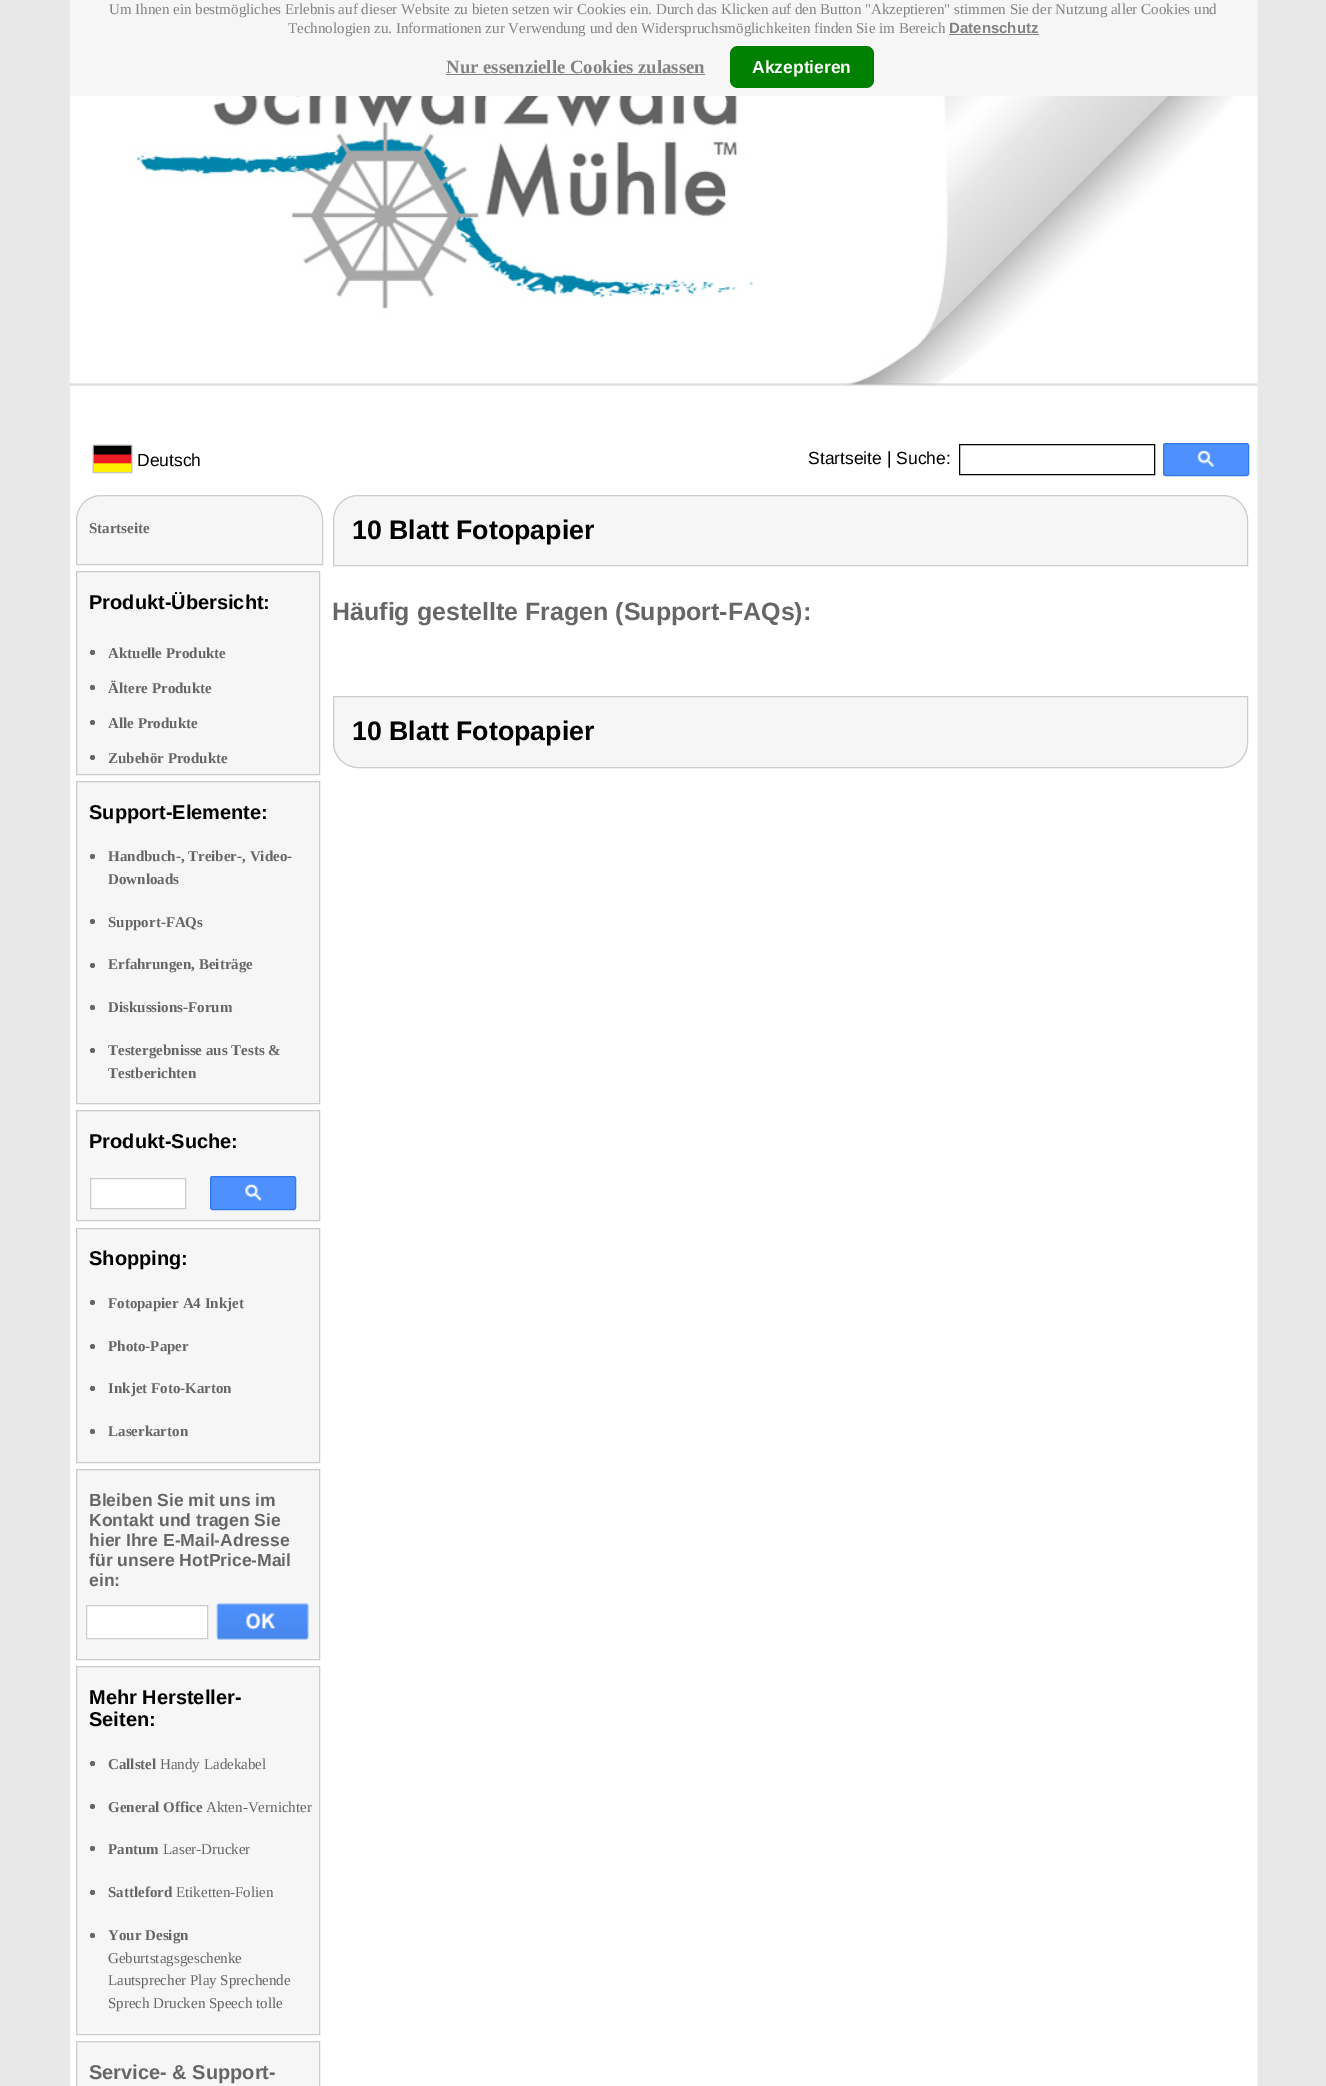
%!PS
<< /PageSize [1326 2086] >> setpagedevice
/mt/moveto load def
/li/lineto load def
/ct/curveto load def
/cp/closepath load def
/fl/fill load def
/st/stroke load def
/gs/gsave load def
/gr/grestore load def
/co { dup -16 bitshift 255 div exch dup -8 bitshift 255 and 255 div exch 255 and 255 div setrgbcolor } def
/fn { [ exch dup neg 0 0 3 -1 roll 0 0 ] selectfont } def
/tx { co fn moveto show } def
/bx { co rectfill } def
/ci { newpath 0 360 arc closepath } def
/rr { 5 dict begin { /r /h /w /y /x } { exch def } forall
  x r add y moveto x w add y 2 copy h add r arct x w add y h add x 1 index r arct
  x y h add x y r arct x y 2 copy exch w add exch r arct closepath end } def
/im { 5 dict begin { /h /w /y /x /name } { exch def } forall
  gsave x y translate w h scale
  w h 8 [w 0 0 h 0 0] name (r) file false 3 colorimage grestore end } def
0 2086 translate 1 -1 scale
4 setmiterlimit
0 0 1326 2086 16#FFFFFF bx
(media/1.raw) 0 0 1326 2086 im
70 0 1187 96 16#F6F6F6 bx
949 34 90 1 16#838383 bx
446 74 259 1 16#838383 bx
16#008000 co
730 46 144 42 8 rr fl
(media/2.raw) 70 96 1188 290 im
(media/3.raw) 92 444 41 30 im
16#000000 co
959.5 444.5 195 30 rectstroke
16#4D90FE co
1163.5 443.5 85 32 2 rr gs fl gr
16#3079ED co
st
(media/4.raw) 1197 450 17 17 im
16#F6F6F6 co
101 495.5 mt 298 495.5 li 311.5 495.5 322.5 506.5 322.5 520 ct 322.5 564.5 li 76.5 564.5 li 76.5 520 li 76.5 506.5 87.5 495.5 101 495.5 ct cp gs fl gr
16#CCCCCC co
st
16#F6F6F6 co
76.5 571.5 mt 319.5 571.5 li 319.5 774.5 li 76.5 774.5 li cp gs fl gr
16#CCCCCC co
st
16#666666 co
92.5 652.5 2.5 ci fl
92.5 687.5 2.5 ci fl
92.5 722.5 2.5 ci fl
92.5 757.5 2.5 ci fl
16#F6F6F6 co
76.5 781.5 mt 319.5 781.5 li 319.5 1103.5 li 76.5 1103.5 li cp gs fl gr
16#CCCCCC co
st
16#666666 co
92.5 856.5 2.5 ci fl
92.5 921.5 2.5 ci fl
92.5 965.5 2.5 ci fl
92.5 1007.5 2.5 ci fl
92.5 1050.5 2.5 ci fl
16#F6F6F6 co
76.5 1110.5 mt 319.5 1110.5 li 319.5 1220.5 li 76.5 1220.5 li cp gs fl gr
16#CCCCCC co
st
16#FFFFFF co
90.5 1178.5 mt 185.5 1178.5 li 185.5 1208.5 li 90.5 1208.5 li cp gs fl gr
16#CCCCCC co
st
16#4D90FE co
210.5 1176.5 85 33 2 rr gs fl gr
16#3079ED co
st
(media/5.raw) 245 1184 17 17 im
16#F6F6F6 co
76.5 1228.5 mt 319.5 1228.5 li 319.5 1462.5 li 76.5 1462.5 li cp gs fl gr
16#CCCCCC co
st
16#666666 co
92.5 1302.5 2.5 ci fl
92.5 1346.5 2.5 ci fl
92.5 1388.5 2.5 ci fl
92.5 1431.5 2.5 ci fl
16#F6F6F6 co
76.5 1469.5 mt 319.5 1469.5 li 319.5 1659.5 li 76.5 1659.5 li cp gs fl gr
16#CCCCCC co
st
16#FFFFFF co
86.5 1605.5 mt 207.5 1605.5 li 207.5 1638.5 li 86.5 1638.5 li cp gs fl gr
16#CCCCCC co
st
(media/6.raw) 216 1603 93 37 im
16#F6F6F6 co
76.5 1666.5 mt 319.5 1666.5 li 319.5 2034.5 li 76.5 2034.5 li cp gs fl gr
16#CCCCCC co
st
16#666666 co
92.5 1763.5 2.5 ci fl
92.5 1806.5 2.5 ci fl
92.5 1848.5 2.5 ci fl
92.5 1892.5 2.5 ci fl
92.5 1935.5 2.5 ci fl
16#F6F6F6 co
76.5 2041.5 mt 319.5 2041.5 li 319.5 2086.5 li 76.5 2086.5 li cp gs fl gr
16#CCCCCC co
st
16#F6F6F6 co
358 495.5 mt 1223 495.5 li 1236.5 495.5 1247.5 506.5 1247.5 520 ct 1247.5 565.5 li 333.5 565.5 li 333.5 520 li 333.5 506.5 344.5 495.5 358 495.5 ct cp gs fl gr
16#CCCCCC co
st
16#F6F6F6 co
333.5 696.5 mt 1247.5 696.5 li 1247.5 743 li 1247.5 756.5 1236.5 767.5 1223 767.5 ct 358 767.5 li 344.5 767.5 333.5 756.5 333.5 743 ct cp gs fl gr
16#CCCCCC co
st
(Um Ihnen ein bestmögliches Erlebnis auf dieser Website zu bieten setzen wir Cookies ein. Durch das Klicken auf den Button "Akzeptieren" stimmen Sie der Nutzung aller Cookies und) 109 14 /LiberationSerif-Regular 15 16#838383 tx
(Technologien zu. Informationen zur Verwendung und den Widerspruchsmöglichkeiten finden Sie im Bereich) 288 33 /LiberationSerif-Regular 15 16#838383 tx
(Datenschutz) 949 33 /LiberationSans-Bold 15 16#838383 tx
(Nur essenzielle Cookies zulassen) 446 73 /LiberationSerif-Bold 18.75 16#838383 tx
(Akzeptieren) 752 73 /LiberationSans-Bold 17.5 16#FFFFFF tx
(Deutsch) 137 466 /LiberationSans-Regular 17.5 16#000000 tx
(Startseite | Suche:) 808 464 /LiberationSans-Regular 17.5 16#000000 tx
(Startseite) 89 533 /LiberationSerif-Bold 15 16#666666 tx
(Produkt-Übersicht:) 89 609 /LiberationSans-Bold 20 16#000000 tx
(Aktuelle Produkte) 108 658 /LiberationSerif-Bold 15 16#666666 tx
(Ältere Produkte) 108 693 /LiberationSerif-Bold 15 16#666666 tx
(Alle Produkte) 108 728 /LiberationSerif-Bold 15 16#666666 tx
(Zubehör Produkte) 108 763 /LiberationSerif-Bold 15 16#666666 tx
(Support-Elemente:) 89 819 /LiberationSans-Bold 20 16#000000 tx
(Handbuch-, Treiber-, Video-) 108 861 /LiberationSerif-Bold 15 16#666666 tx
(Downloads) 108 884 /LiberationSerif-Bold 15 16#666666 tx
(Support-FAQs) 108 927 /LiberationSerif-Bold 15 16#666666 tx
(Erfahrungen, Beiträge) 108 969 /LiberationSerif-Bold 15 16#666666 tx
(Diskussions-Forum) 108 1012 /LiberationSerif-Bold 15 16#666666 tx
(Testergebnisse aus Tests &) 108 1055 /LiberationSerif-Bold 15 16#666666 tx
(Testberichten) 108 1078 /LiberationSerif-Bold 15 16#666666 tx
(Produkt-Suche:) 89 1148 /LiberationSans-Bold 20 16#000000 tx
(Shopping:) 89 1265 /LiberationSans-Bold 20 16#000000 tx
(Fotopapier A4 Inkjet) 108 1308 /LiberationSerif-Bold 15 16#666666 tx
(Photo-Paper) 108 1351 /LiberationSerif-Bold 15 16#666666 tx
(Inkjet Foto-Karton) 108 1393 /LiberationSerif-Bold 15 16#666666 tx
(Laserkarton) 108 1436 /LiberationSerif-Bold 15 16#666666 tx
(Bleiben Sie mit uns im) 89 1506 /LiberationSans-Bold 17.5 16#666666 tx
(Kontakt und tragen Sie) 89 1526 /LiberationSans-Bold 17.5 16#666666 tx
(hier Ihre E-Mail-Adresse) 89 1546 /LiberationSans-Bold 17.5 16#666666 tx
(für unsere HotPrice-Mail) 89 1566 /LiberationSans-Bold 17.5 16#666666 tx
(ein:) 89 1586 /LiberationSans-Bold 17.5 16#666666 tx
(Mehr Hersteller-) 89 1704 /LiberationSans-Bold 20 16#000000 tx
(Seiten:) 89 1726 /LiberationSans-Bold 20 16#000000 tx
(Callstel) 108 1769 /LiberationSerif-Bold 15 16#666666 tx
(Handy Ladekabel) 160 1769 /LiberationSerif-Regular 15 16#666666 tx
(General Office) 108 1812 /LiberationSerif-Bold 15 16#666666 tx
(Akten-Vernichter) 206 1812 /LiberationSerif-Regular 15 16#666666 tx
(Pantum) 108 1854 /LiberationSerif-Bold 15 16#666666 tx
(Laser-Drucker) 163 1854 /LiberationSerif-Regular 15 16#666666 tx
(Sattleford) 108 1897 /LiberationSerif-Bold 15 16#666666 tx
(Etiketten-Folien) 176 1897 /LiberationSerif-Regular 15 16#666666 tx
(Your Design) 108 1940 /LiberationSerif-Bold 15 16#666666 tx
(Geburtstagsgeschenke) 108 1963 /LiberationSerif-Regular 15 16#666666 tx
(Lautsprecher Play Sprechende) 108 1985 /LiberationSerif-Regular 15 16#666666 tx
(Sprech Drucken Speech tolle) 108 2008 /LiberationSerif-Regular 15 16#666666 tx
(Service- & Support-) 89 2079 /LiberationSans-Bold 20 16#666666 tx
(10 Blatt Fotopapier) 352 539 /LiberationSans-Bold 26.75 16#000000 tx
(Häufig gestellte Fragen \(Support-FAQs\):) 332 620 /LiberationSans-Bold 25 16#666666 tx
(10 Blatt Fotopapier) 352 740 /LiberationSans-Bold 26.75 16#000000 tx
showpage
